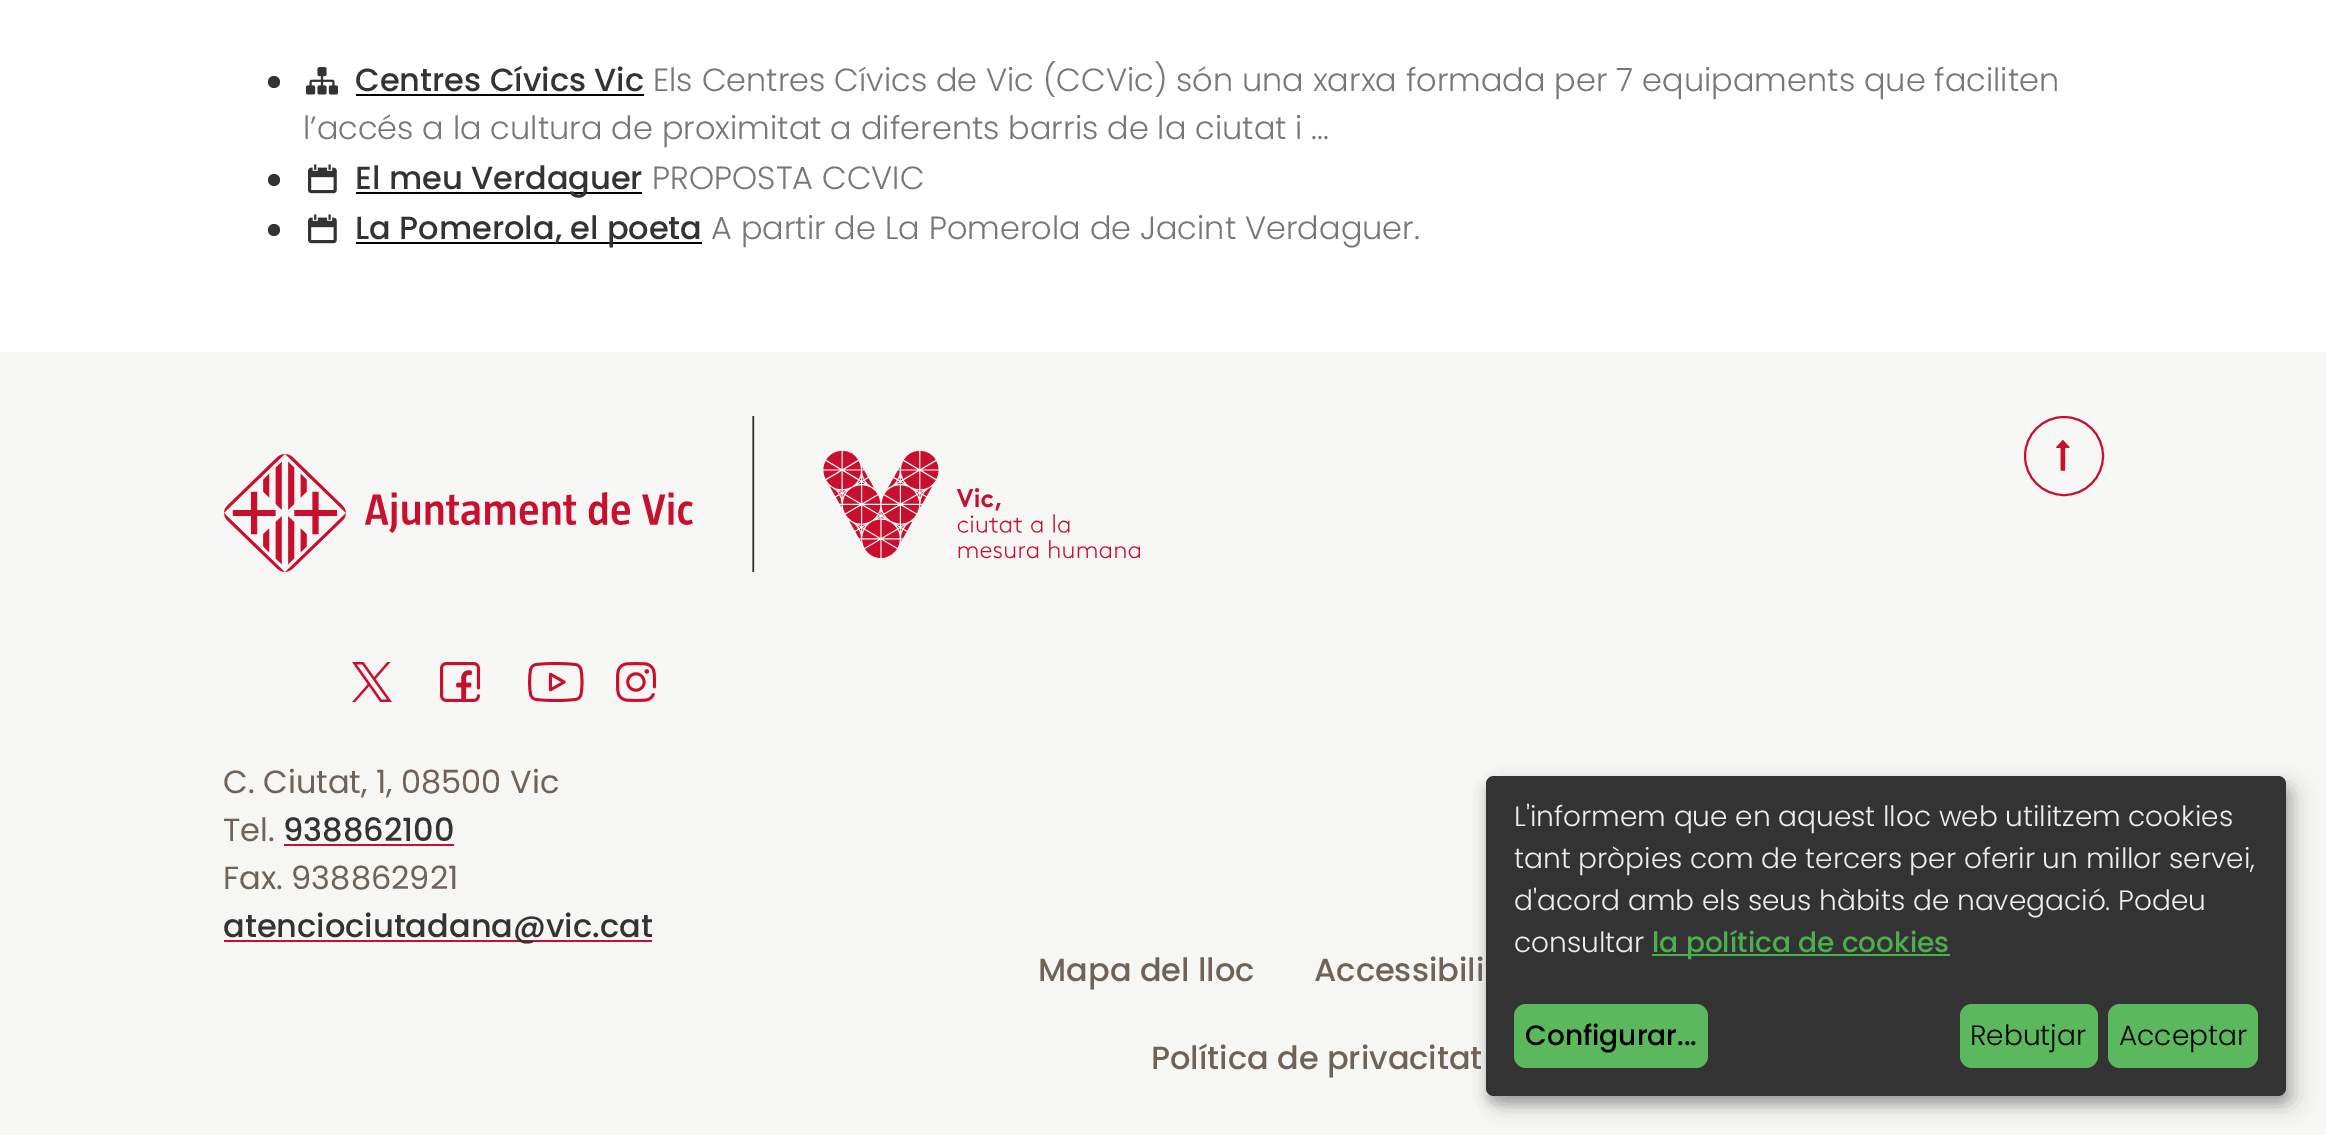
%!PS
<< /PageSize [2326 1135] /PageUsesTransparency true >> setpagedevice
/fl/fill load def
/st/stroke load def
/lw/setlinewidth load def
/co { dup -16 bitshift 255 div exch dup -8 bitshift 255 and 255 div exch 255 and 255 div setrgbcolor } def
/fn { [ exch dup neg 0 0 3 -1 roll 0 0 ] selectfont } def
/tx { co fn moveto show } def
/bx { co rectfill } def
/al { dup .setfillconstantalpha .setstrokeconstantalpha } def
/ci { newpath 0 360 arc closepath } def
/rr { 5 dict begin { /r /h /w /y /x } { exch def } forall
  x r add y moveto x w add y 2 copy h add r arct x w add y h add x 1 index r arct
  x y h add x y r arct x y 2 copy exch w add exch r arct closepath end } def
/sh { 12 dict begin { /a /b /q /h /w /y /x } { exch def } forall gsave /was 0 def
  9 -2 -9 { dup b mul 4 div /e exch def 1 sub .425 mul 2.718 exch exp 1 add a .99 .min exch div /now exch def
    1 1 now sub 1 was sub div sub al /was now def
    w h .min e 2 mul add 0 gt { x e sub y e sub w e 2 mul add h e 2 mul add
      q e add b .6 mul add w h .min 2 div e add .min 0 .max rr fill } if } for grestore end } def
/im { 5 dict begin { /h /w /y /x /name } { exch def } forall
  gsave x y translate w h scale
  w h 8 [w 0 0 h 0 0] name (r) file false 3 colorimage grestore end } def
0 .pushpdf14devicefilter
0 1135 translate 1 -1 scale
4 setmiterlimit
0 0 2326 1135 16#FFFFFF bx
16#333333 co
274 82 6 ci fl
(media/1.raw) 306 67 32 28 im
356 94 288 2 16#000000 bx
16#333333 co
274 180 6 ci fl
(media/2.raw) 308 164 29 30 im
356 192 286 2 16#000000 bx
16#333333 co
274 230 6 ci fl
(media/2.raw) 308 214 29 30 im
356 242 346 2 16#000000 bx
0 352 2326 783 16#F6F6F5 bx
(media/3.raw) 224 416 916 156 im
16#C8102E co
2 lw
2064 456 39 ci st
(media/4.raw) 2056 440 14 31 im
(media/5.raw) 352 662 40 40 im
(media/6.raw) 440 662 40 40 im
(media/7.raw) 528 662 56 40 im
(media/8.raw) 616 662 40 40 im
284 844 170 2 16#C8102E bx
224 940 428 2 16#C8102E bx
16#000000 co
1496 786 800 320 8 10 .19 sh
1486 784 800 320 8 6 .2 sh
16#333333 co
1486 776 800 320 8 rr fl
1652 954 298 2 16#4CAE4C bx
16#5CB85C co
1514 1004 194 64 12 rr fl
1960 1004 138 64 12 rr fl
2108 1004 150 64 12 rr fl
(Centres Cívics Vic) 355 91 /Poppins-Medium 32 16#333333 tx
(Els Centres Cívics de Vic \(CCVic\) són una xarxa formada per 7 equipaments que faciliten) 653 91 /Poppins-Light 32 16#777777 tx
(l’accés a la cultura de proximitat a diferents barris de la ciutat i ...) 303 139 /Poppins-Light 32 16#777777 tx
(El meu Verdaguer) 355 189 /Poppins-Medium 32 16#333333 tx
(PROPOSTA CCVIC) 652 189 /Poppins-Light 32 16#777777 tx
(La Pomerola, el poeta) 355 239 /Poppins-Medium 32 16#333333 tx
(A partir de La Pomerola de Jacint Verdaguer.) 711 239 /Poppins-Light 32 16#777777 tx
(C. Ciutat, 1, 08500 Vic) 223 793 /Poppins-Regular 32 16#6E6259 tx
(Tel.) 223 841 /Poppins-Regular 32 16#6E6259 tx
(938862100) 283 841 /Poppins-Medium 32 16#333333 tx
(Fax. 938862921) 223 889 /Poppins-Regular 32 16#6E6259 tx
(atenciociutadana@vic.cat) 223 937 /Poppins-Medium 32 16#333333 tx
(Mapa del lloc) 1038 981 /Poppins-Medium 32 16#6E6259 tx
(Accessibili) 1314 981 /Poppins-Medium 32 16#6E6259 tx
(Política de privacitat) 1151 1069 /Poppins-Medium 32 16#6E6259 tx
(L'informem que en aquest lloc web utilitzem cookies) 1514 826 /Poppins-Light 28 16#EEEEEE tx
(tant pròpies com de tercers per oferir un millor servei,) 1514 868 /Poppins-Light 28 16#EEEEEE tx
(d'acord amb els seus hàbits de navegació. Podeu) 1514 910 /Poppins-Light 28 16#EEEEEE tx
(consultar) 1514 952 /Poppins-Light 28 16#EEEEEE tx
(la política de cookies) 1652 952 /Poppins-Medium 28 16#4CAE4C tx
(Configurar...) 1525 1045 /Poppins-Medium 28 16#000000 tx
(Rebutjar) 1970 1045 /Poppins-Light 28 16#000000 tx
(Acceptar) 2119 1045 /Poppins-Light 28 16#000000 tx
.poppdf14devicefilter showpage
